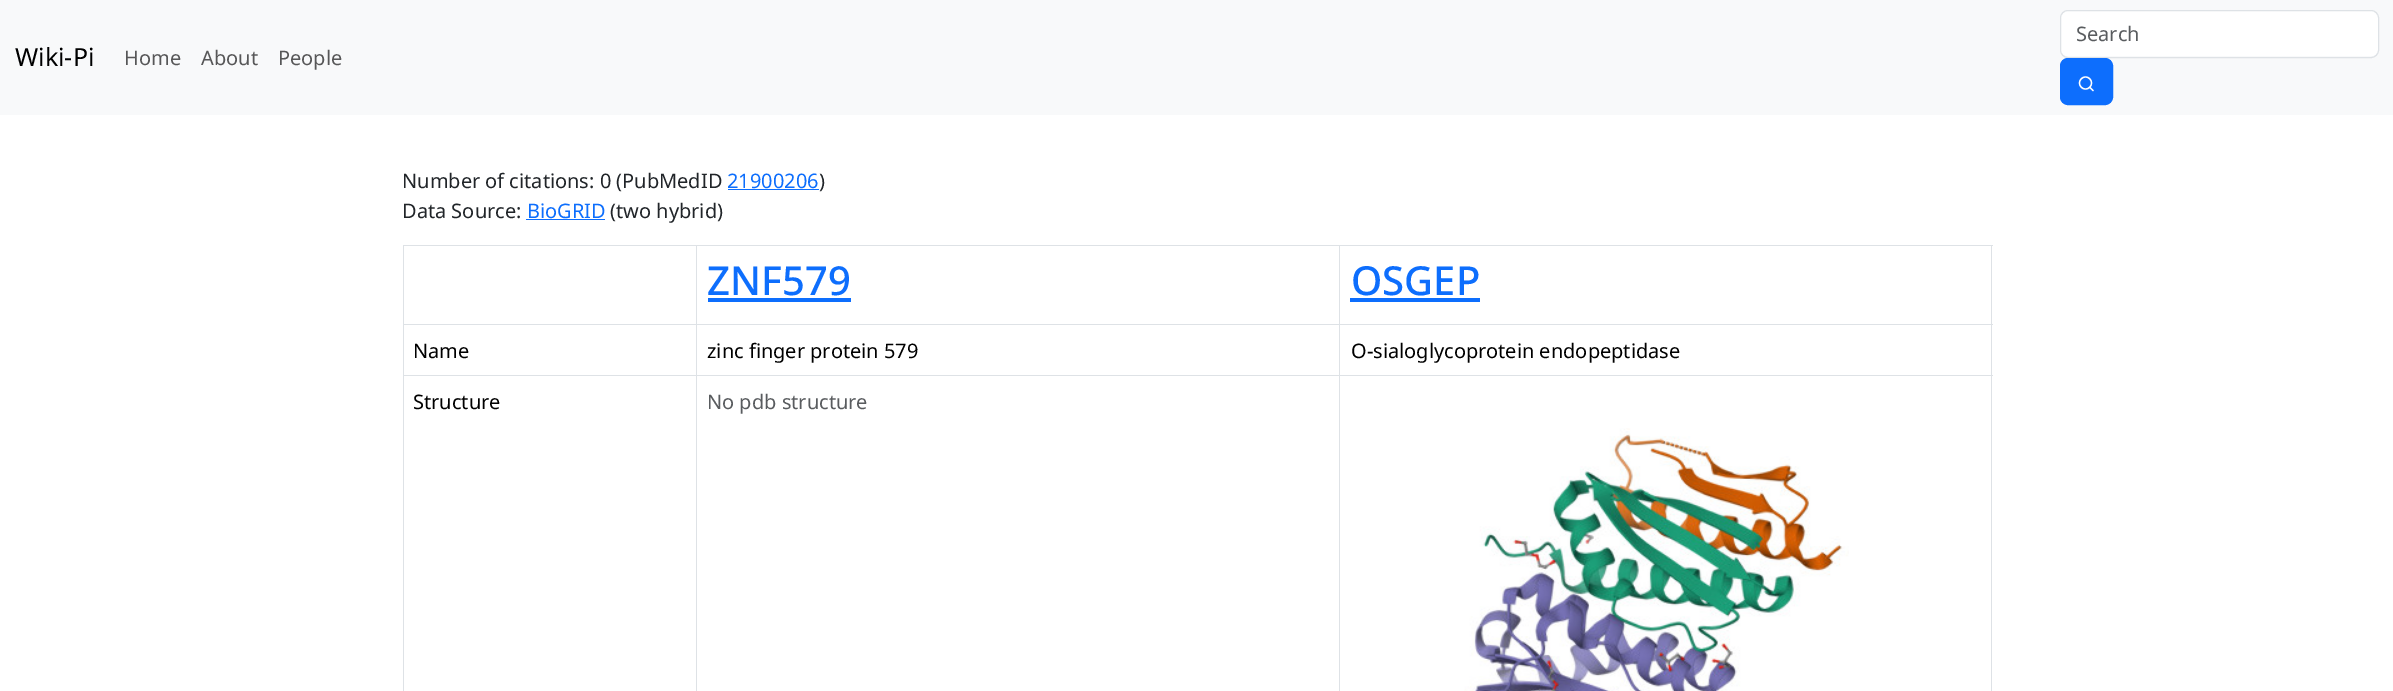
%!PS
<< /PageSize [2393 691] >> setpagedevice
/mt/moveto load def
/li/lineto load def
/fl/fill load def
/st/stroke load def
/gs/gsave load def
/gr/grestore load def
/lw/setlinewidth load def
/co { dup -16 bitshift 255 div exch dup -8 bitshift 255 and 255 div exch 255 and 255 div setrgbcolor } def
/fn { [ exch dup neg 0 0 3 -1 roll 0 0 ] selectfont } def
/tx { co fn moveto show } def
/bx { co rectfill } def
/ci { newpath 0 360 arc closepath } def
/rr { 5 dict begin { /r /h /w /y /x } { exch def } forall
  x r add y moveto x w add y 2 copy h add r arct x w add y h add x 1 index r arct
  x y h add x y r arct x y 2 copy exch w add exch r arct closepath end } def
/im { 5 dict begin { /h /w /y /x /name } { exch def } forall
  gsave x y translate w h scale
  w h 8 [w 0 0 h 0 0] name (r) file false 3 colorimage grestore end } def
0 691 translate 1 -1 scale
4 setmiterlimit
0 0 2393 691 16#FFFFFF bx
0 0 2393 115 16#F8F9FA bx
16#FFFFFF co
2061 11 317 45 6 rr fl
16#DEE2E6 co
2060.5 10.5 318 47 7.5 rr st
16#0D6EFD co
2060.5 58.5 52 46 7.5 rr gs fl gr
st
16#FFFFFF co
1.3 lw
2085.5 83 6 ci st
1 setlinecap
2093 90.5 mt 2090 87.5 li st
728 189 91 1 16#0D6EFD bx
526 219 79 1 16#0D6EFD bx
403 245 1590 1 16#DEE2E6 bx
708 298 143 4 16#0D6EFD bx
1350 298 130 4 16#0D6EFD bx
403 324 1590 1 16#DEE2E6 bx
403 375 1590 1 16#DEE2E6 bx
403 245 1 446 16#DEE2E6 bx
696 245 1 446 16#DEE2E6 bx
1991 245 1 446 16#DEE2E6 bx
1339 245 1 446 16#DEE2E6 bx
(media/1.raw) 1464 428 385 263 im
(Wiki-Pi) 15 66 /NotoSans-Regular 25 16#000000 tx
(Search) 2076 41 /NotoSans-Regular 20 16#595C5F tx
(Home) 124 65 /NotoSans-Regular 20 16#575758 tx
(About) 201 65 /NotoSans-Regular 20 16#575758 tx
(People) 278 65 /NotoSans-Regular 20 16#575758 tx
(Number of citations: 0 \(PubMedID) 402 188 /NotoSans-Regular 20 16#212529 tx
(21900206) 727 188 /NotoSans-Regular 20 16#0D6EFD tx
(\)) 819 188 /NotoSans-Regular 20 16#212529 tx
(Data Source:) 402 218 /NotoSans-Regular 20 16#212529 tx
(BioGRID) 527 218 /NotoSans-Regular 20 16#0D6EFD tx
(\(two hybrid\)) 610 218 /NotoSans-Regular 20 16#212529 tx
(ZNF579) 707 295 /NotoSans-Medium 40 16#0D6EFD tx
(OSGEP) 1351 295 /NotoSans-Medium 40 16#0D6EFD tx
(Name) 413 358 /NotoSans-Regular 20 16#000000 tx
(zinc finger protein 579) 707 358 /NotoSans-Regular 20 16#000000 tx
(O-sialoglycoprotein endopeptidase) 1351 358 /NotoSans-Regular 20 16#000000 tx
(Structure) 413 409 /NotoSans-Regular 20 16#000000 tx
(No pdb structure) 707 409 /NotoSans-Regular 20 16#595C5F tx
showpage
